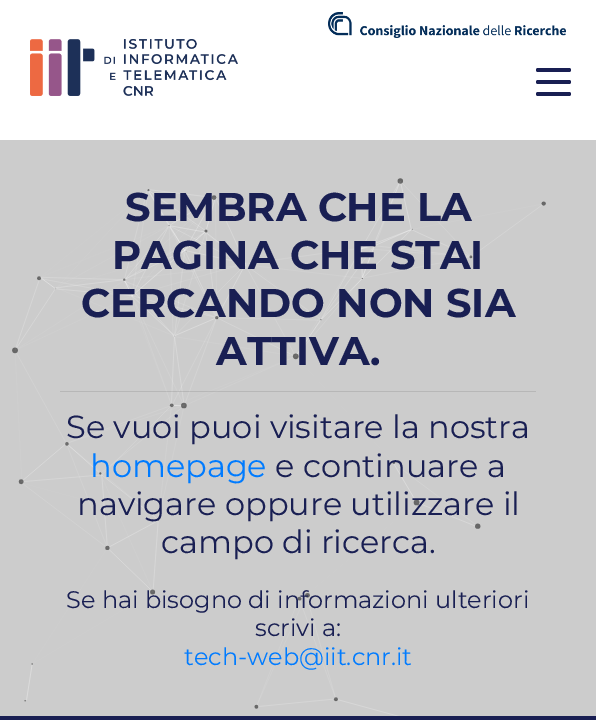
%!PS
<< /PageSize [596 720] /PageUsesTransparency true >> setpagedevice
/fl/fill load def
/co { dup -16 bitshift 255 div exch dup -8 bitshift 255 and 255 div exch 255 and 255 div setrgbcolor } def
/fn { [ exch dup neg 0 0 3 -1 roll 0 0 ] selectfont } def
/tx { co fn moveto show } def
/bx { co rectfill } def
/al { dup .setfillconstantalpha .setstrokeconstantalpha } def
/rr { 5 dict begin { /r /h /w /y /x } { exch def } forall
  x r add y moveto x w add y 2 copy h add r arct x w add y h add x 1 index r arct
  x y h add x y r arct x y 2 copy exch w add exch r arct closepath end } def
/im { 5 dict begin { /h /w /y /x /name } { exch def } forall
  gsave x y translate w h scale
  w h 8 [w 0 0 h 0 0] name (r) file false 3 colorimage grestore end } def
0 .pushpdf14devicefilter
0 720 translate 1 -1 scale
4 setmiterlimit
0 0 596 720 16#FFFFFF bx
(media/1.raw) 30 39 208 57 im
(media/2.raw) 328 12 238 26 im
16#191F53 co
536 68 35 4 2 rr fl
536 80 35 4 2 rr fl
536 92 35 4 2 rr fl
0 140 596 576 16#CCCCCC bx
(media/3.raw) 12 178 534 538 im
0.1 al
60 391 476 1 16#000000 bx
1 al
0 716 596 4 16#191F53 bx
(SEMBRA CHE LA) 125 221 /Montserrat-Bold 40 16#191F53 tx
(PAGINA CHE STAI) 112 269 /Montserrat-Bold 40 16#191F53 tx
(CERCANDO NON SIA) 81 317 /Montserrat-Bold 40 16#191F53 tx
(ATTIVA.) 216 365 /Montserrat-Bold 40 16#191F53 tx
(Se vuoi puoi visitare la nostra) 66 438 /Montserrat-Regular 32 16#191F53 tx
(homepage) 90 477 /Montserrat-Regular 32 16#007BFF tx
(e continuare a) 275 477 /Montserrat-Regular 32 16#191F53 tx
(navigare oppure utilizzare il) 77 515 /Montserrat-Regular 32 16#191F53 tx
(campo di ricerca.) 161 553 /Montserrat-Regular 32 16#191F53 tx
(Se hai bisogno di informazioni ulteriori) 66 608 /Montserrat-Regular 24 16#191F53 tx
(scrivi a:) 255 636 /Montserrat-Regular 24 16#191F53 tx
(tech-web@iit.cnr.it) 184 665 /Montserrat-Regular 24 16#007BFF tx
.poppdf14devicefilter showpage
